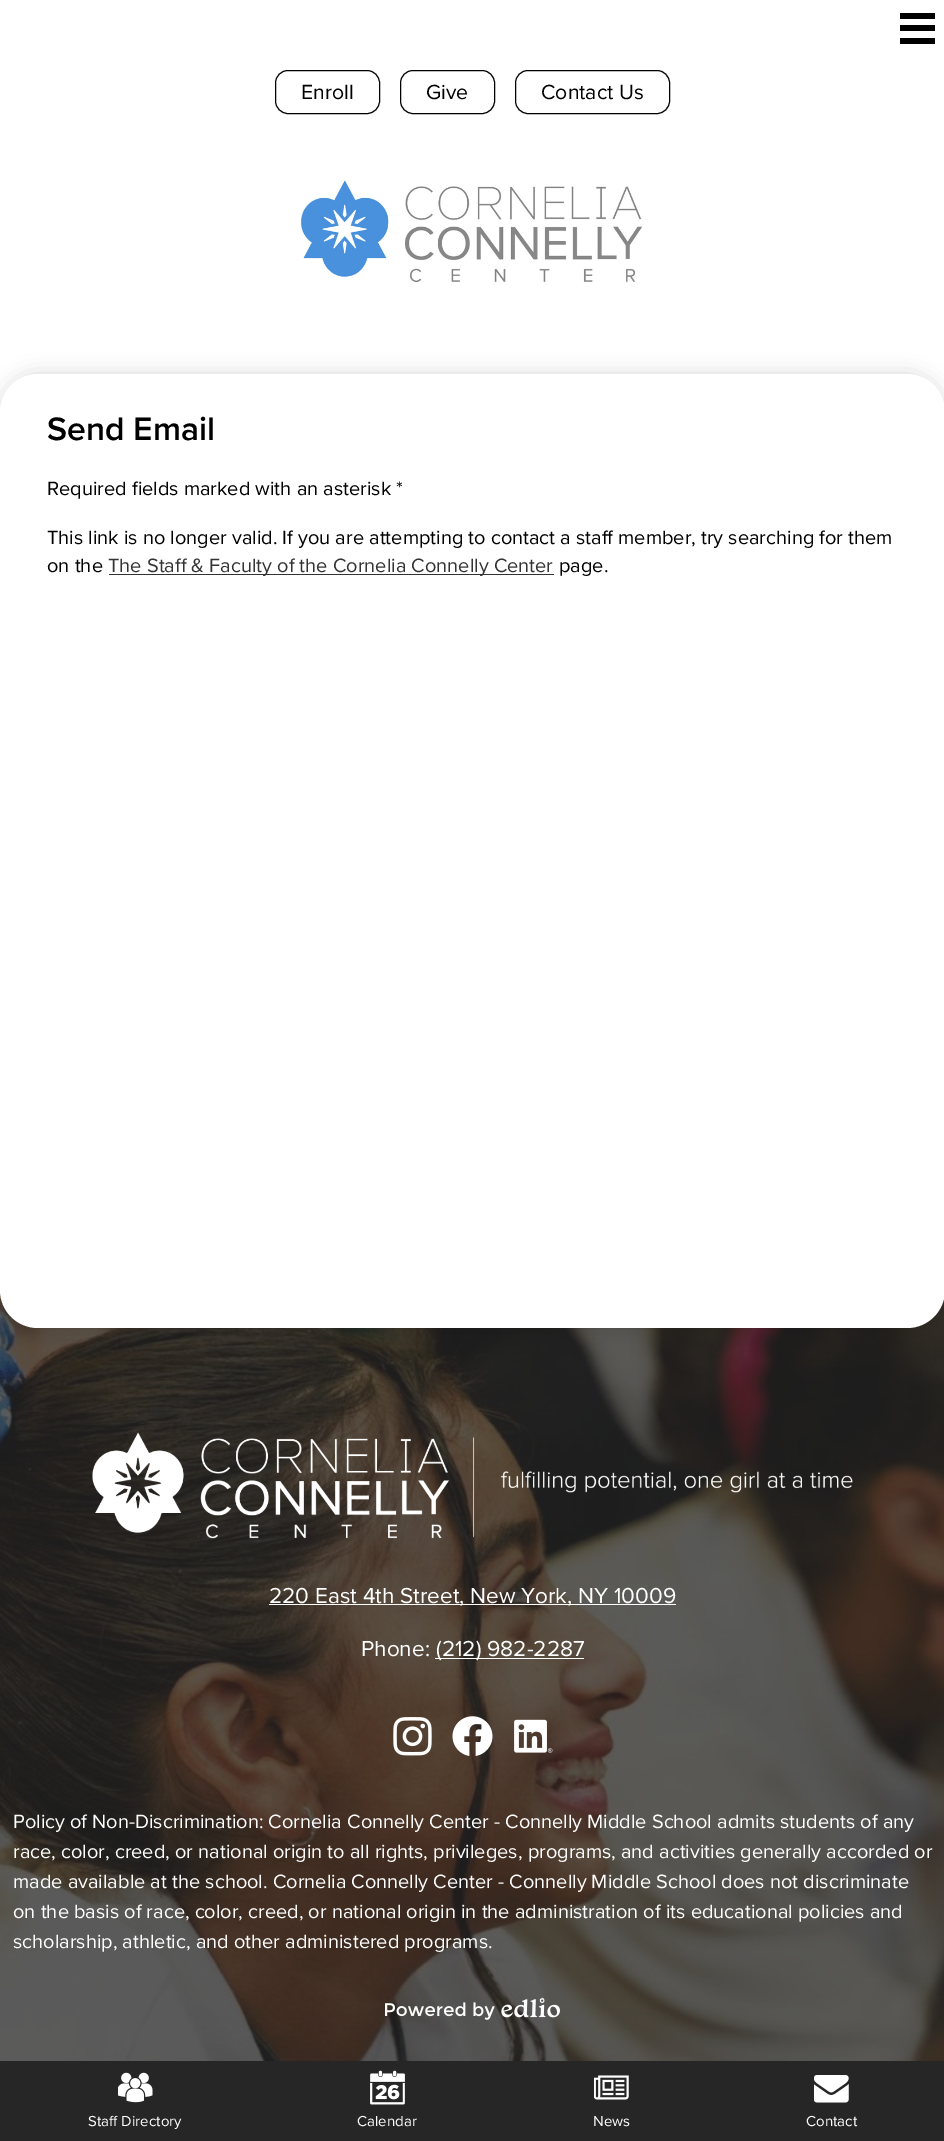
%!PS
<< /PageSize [944 2141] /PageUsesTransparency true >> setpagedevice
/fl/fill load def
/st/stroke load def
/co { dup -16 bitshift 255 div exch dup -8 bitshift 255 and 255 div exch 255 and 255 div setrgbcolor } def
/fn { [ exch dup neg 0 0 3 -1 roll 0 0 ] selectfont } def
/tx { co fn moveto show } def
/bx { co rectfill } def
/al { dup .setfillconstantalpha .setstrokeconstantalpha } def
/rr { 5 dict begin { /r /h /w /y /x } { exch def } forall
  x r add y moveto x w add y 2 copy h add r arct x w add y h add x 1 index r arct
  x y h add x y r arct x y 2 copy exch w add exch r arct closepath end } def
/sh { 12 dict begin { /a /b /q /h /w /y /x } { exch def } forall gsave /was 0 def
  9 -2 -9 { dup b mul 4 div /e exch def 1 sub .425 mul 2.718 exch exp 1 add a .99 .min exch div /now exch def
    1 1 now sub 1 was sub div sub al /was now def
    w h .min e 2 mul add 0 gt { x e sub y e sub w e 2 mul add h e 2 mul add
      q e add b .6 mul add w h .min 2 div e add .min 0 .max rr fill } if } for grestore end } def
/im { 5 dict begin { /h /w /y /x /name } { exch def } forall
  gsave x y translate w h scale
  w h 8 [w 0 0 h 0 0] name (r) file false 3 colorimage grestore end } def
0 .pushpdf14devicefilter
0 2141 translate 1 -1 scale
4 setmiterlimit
0 0 944 2141 16#FFFFFF bx
900 13 35 6 16#000000 bx
900 25 35 6 16#000000 bx
900 38 35 6 16#000000 bx
275.5 70.5 104 43 12.5 rr st
400.5 70.5 94 43 12.5 rr st
515.5 70.5 154 43 12.5 rr st
(media/1.raw) 300 180 343 103 im
(media/2.raw) 0 1290 944 771 im
0 374 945 954 38 10 .15 sh
16#FFFFFF co
0 374 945 954 38 rr fl
109 574 445 1 16#333333 bx
(media/3.raw) 92 1432 761 107 im
269 1604 407 1 16#FFFFFF bx
435 1658 149 1 16#FFFFFF bx
(media/4.raw) 393 1717 39 39 im
(media/5.raw) 452 1716 41 40 im
(media/6.raw) 514 1719 39 34 im
(media/7.raw) 385 1997 175 23 im
0 2061 944 80 16#262626 bx
(media/8.raw) 118 2072 35 31 im
(media/9.raw) 370 2070 35 35 im
(media/10.raw) 594 2075 35 25 im
(media/11.raw) 814 2075 35 28 im
(Enroll) 301 99 /ProximaNova-Regular 21.25 16#000000 tx
(Give) 426 99 /ProximaNova-Regular 21.25 16#000000 tx
(Contact Us) 541 99 /ProximaNova-Regular 21.25 16#000000 tx
(Send Email) 47 440 /ProximaNova-SemiBold 33.75 16#000000 tx
(Required fields marked with an asterisk *) 47 495 /ProximaNova-Regular 20 16#000000 tx
(This link is no longer valid. If you are attempting to contact a staff member, try searching for them) 47 544 /ProximaNova-Regular 20 16#000000 tx
(on the) 47 572 /ProximaNova-Regular 20 16#000000 tx
(The Staff & Faculty of the Cornelia Connelly Center) 108 572 /ProximaNova-Regular 20 16#333333 tx
(page.) 559 572 /ProximaNova-Regular 20 16#000000 tx
(220 East 4th Street, New York, NY 10009) 269 1603 /ProximaNova-Regular 22.5 16#FFFFFF tx
(Phone:) 361 1656 /ProximaNova-Regular 22.5 16#FFFFFF tx
(\(212\) 982-2287) 436 1656 /ProximaNova-Regular 22.5 16#FFFFFF tx
(Policy of Non-Discrimination: Cornelia Connelly Center - Connelly Middle School admits students of any) 13 1828 /ProximaNova-Regular 20 16#FFFFFF tx
(race, color, creed, or national origin to all rights, privileges, programs, and activities generally accorded or) 13 1858 /ProximaNova-Regular 20 16#FFFFFF tx
(made available at the school. Cornelia Connelly Center - Connelly Middle School does not discriminate) 13 1888 /ProximaNova-Regular 20 16#FFFFFF tx
(on the basis of race, color, creed, or national origin in the administration of its educational policies and) 13 1918 /ProximaNova-Regular 20 16#FFFFFF tx
(scholarship, athletic, and other administered programs.) 13 1948 /ProximaNova-Regular 20 16#FFFFFF tx
(Staff Directory) 88 2126 /ProximaNova-Regular 15 16#FFFFFF tx
(Calendar) 357 2126 /ProximaNova-Regular 15 16#FFFFFF tx
(News) 593 2126 /ProximaNova-Regular 15 16#FFFFFF tx
(Contact) 806 2126 /ProximaNova-Regular 15 16#FFFFFF tx
.poppdf14devicefilter showpage
